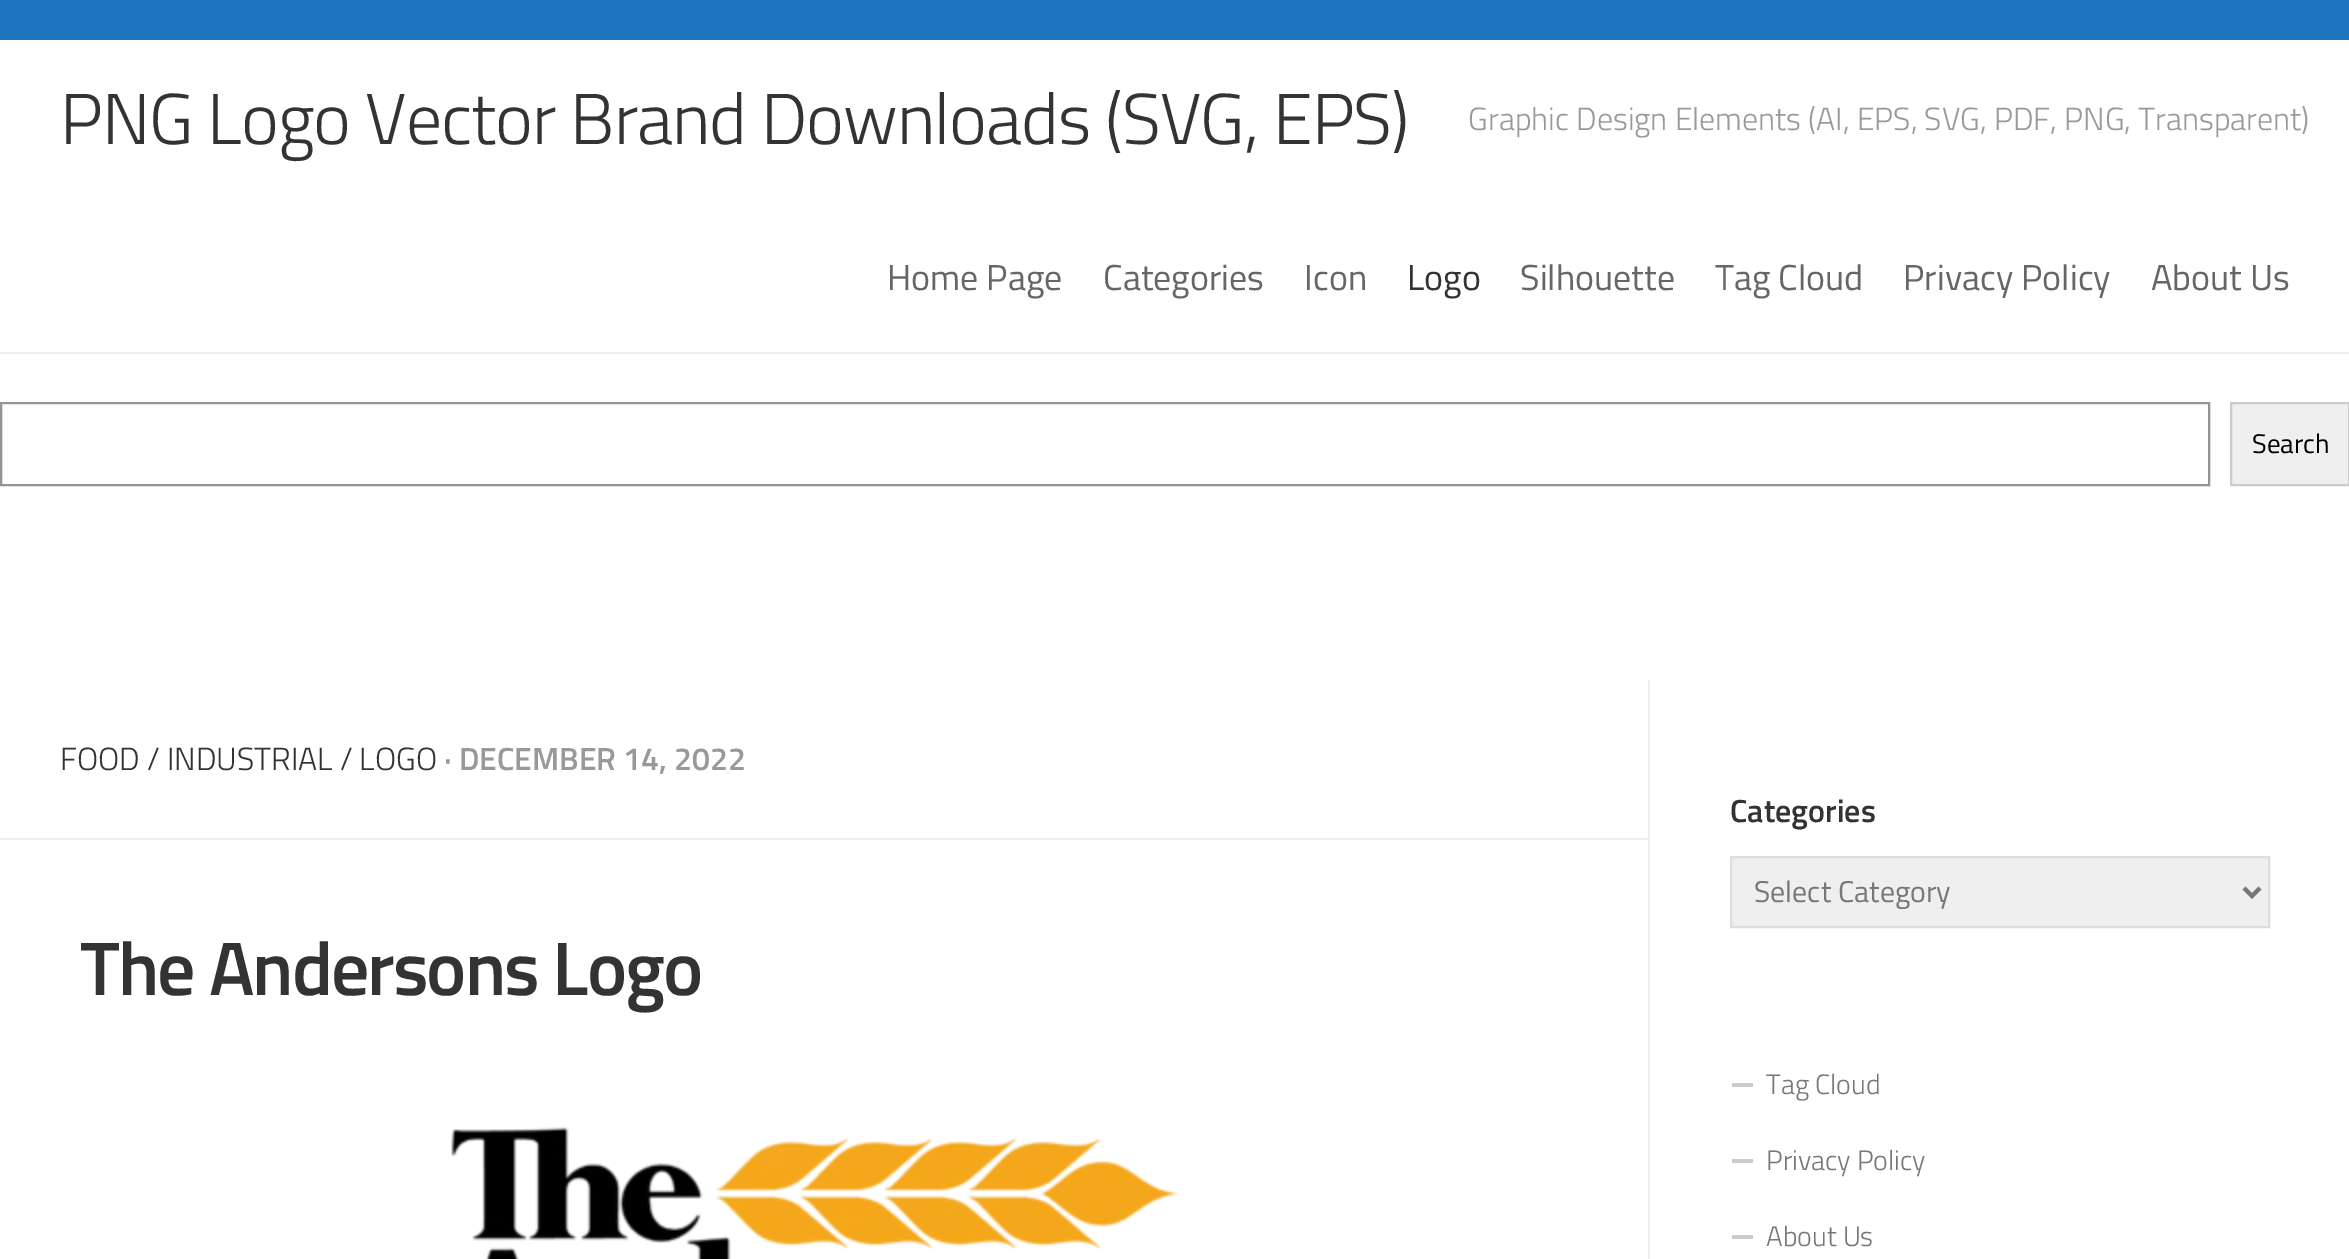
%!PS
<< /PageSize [2349 1259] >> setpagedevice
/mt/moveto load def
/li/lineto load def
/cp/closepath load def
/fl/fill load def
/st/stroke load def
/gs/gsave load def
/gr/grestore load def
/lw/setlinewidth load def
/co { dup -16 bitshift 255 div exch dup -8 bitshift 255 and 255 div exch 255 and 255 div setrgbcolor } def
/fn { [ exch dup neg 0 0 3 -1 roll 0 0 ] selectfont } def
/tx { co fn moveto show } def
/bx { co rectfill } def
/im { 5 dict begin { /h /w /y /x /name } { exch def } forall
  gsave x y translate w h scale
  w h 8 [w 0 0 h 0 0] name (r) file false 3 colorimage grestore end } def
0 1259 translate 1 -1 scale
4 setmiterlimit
0 0 2349 1259 16#1E73BE bx
0 40 2349 1219 16#FFFFFF bx
0 352 2349 2 16#EEEEEE bx
16#949494 co
2 lw
1 403 2208 82 rectstroke
16#EFEFEF co
2231 403 mt 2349 403 li 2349 485 li 2231 485 li cp gs fl gr
16#CCCCCC co
st
0 838 1648 2 16#EEEEEE bx
(media/1.raw) 451 1127 728 132 im
1648 680 2 579 16#EEEEEE bx
16#EFEFEF co
1731 857 mt 2269 857 li 2269 927 li 1731 927 li cp gs fl gr
16#DDDDDD co
st
16#777777 co
4 lw
2244 888 mt 2252 896 li 2260 888 li st
1732 1083 21 4 16#CCCCCC bx
1732 1159 21 4 16#CCCCCC bx
1732 1235 21 4 16#CCCCCC bx
/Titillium-Light 72 fn
16#333333 co
60 144 mt -1 0 (PNG Logo Vector Brand Downloads \(SVG, EPS\)) ashow
(Graphic Design Elements \(AI, EPS, SVG, PDF, PNG, Transparent\)) 1468 130 /Titillium-Light 32 16#999999 tx
(Home Page) 887 290 /Titillium-Regular 36 16#666666 tx
(Categories) 1103 290 /Titillium-Regular 36 16#666666 tx
(Icon) 1304 290 /Titillium-Regular 36 16#666666 tx
(Logo) 1407 290 /Titillium-Regular 36 16#333333 tx
(Silhouette) 1520 290 /Titillium-Regular 36 16#666666 tx
(Tag Cloud) 1715 290 /Titillium-Regular 36 16#666666 tx
(Privacy Policy) 1903 290 /Titillium-Regular 36 16#666666 tx
(About Us) 2151 290 /Titillium-Regular 36 16#666666 tx
(Search) 2252 453 /Titillium-Regular 27 16#000000 tx
(FOOD / INDUSTRIAL / LOGO) 60 770 /Titillium-Light 32 16#333333 tx
(· DECEMBER 14, 2022) 444 770 /Titillium-SemiBold 32 16#999999 tx
/Titillium-SemiBold 76 fn
16#333333 co
80 995 mt -2 0 (The Andersons Logo) ashow
(Categories) 1730 822 /Titillium-SemiBold 32 16#333333 tx
(Select Category) 1754 902 /Titillium-Regular 30 16#777777 tx
(Tag Cloud) 1766 1094 /Titillium-Light 28 16#777777 tx
(Privacy Policy) 1766 1170 /Titillium-Light 28 16#777777 tx
(About Us) 1766 1246 /Titillium-Light 28 16#777777 tx
showpage
